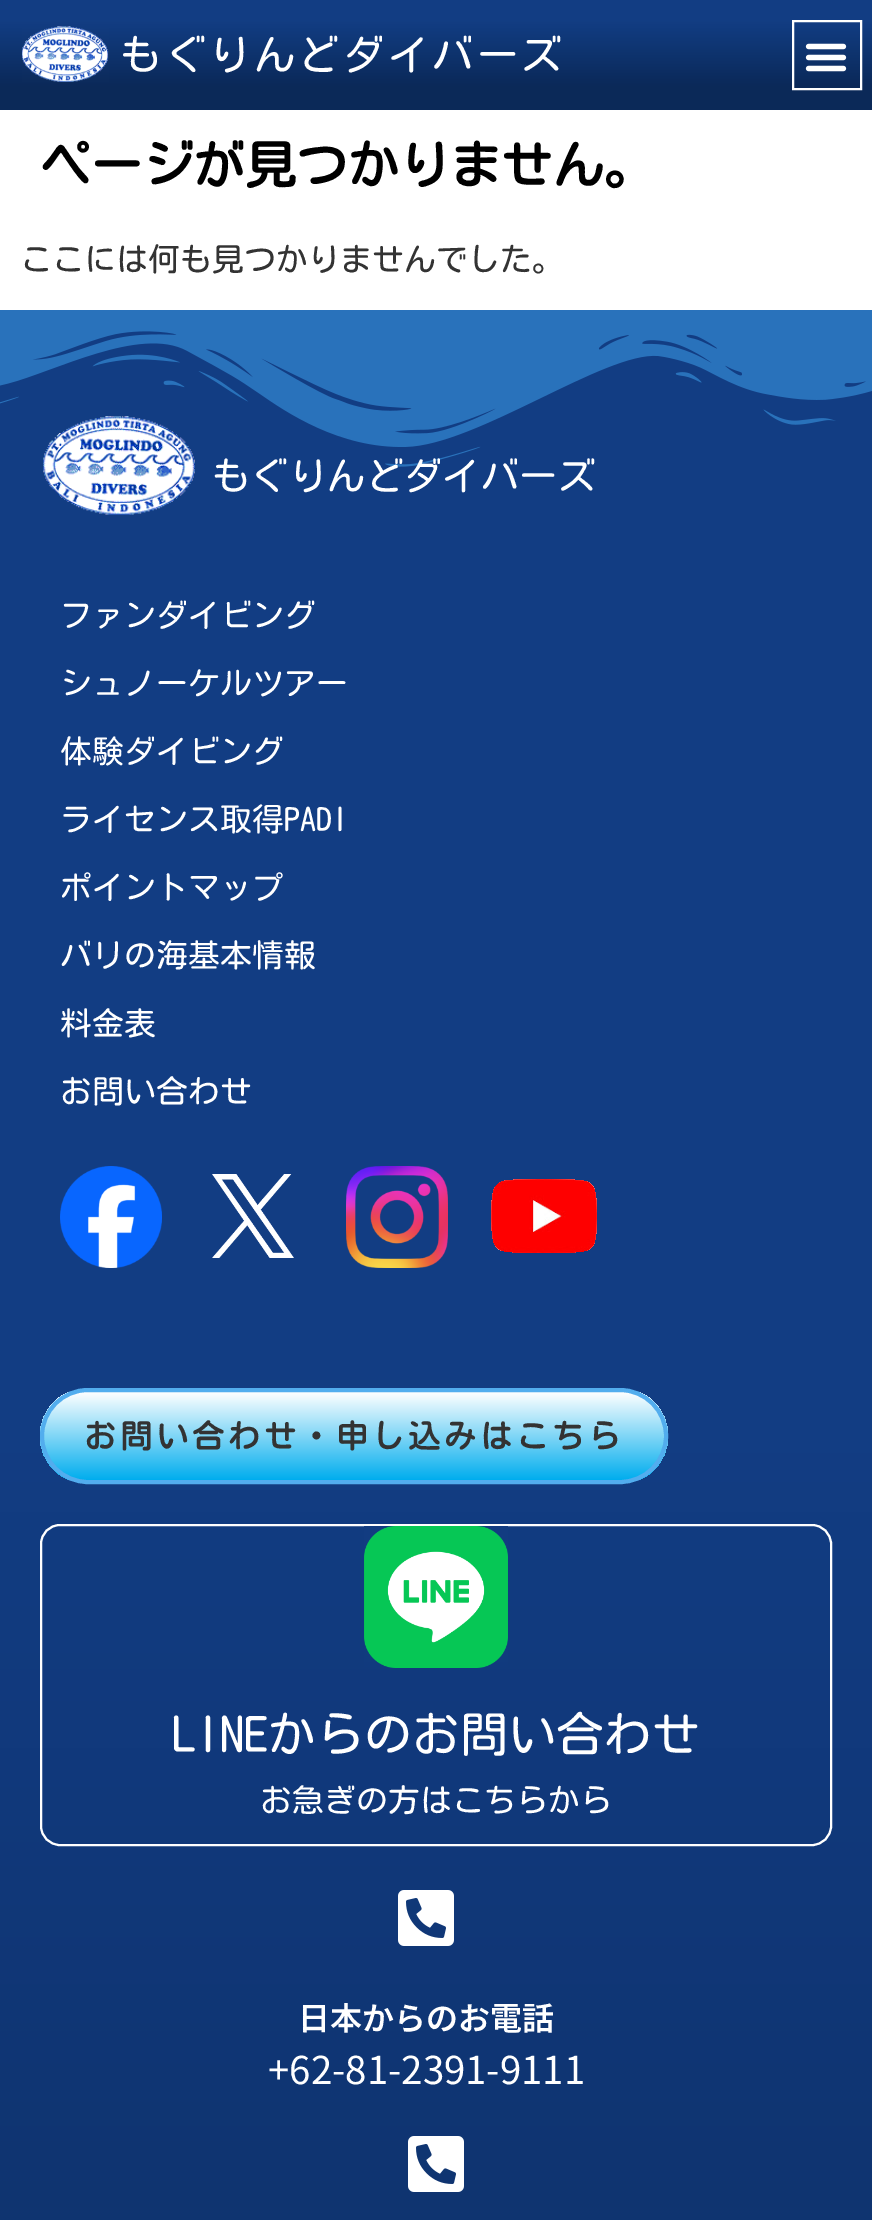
%!PS
<< /PageSize [872 2220] >> setpagedevice
/mt/moveto load def
/li/lineto load def
/cp/closepath load def
/st/stroke load def
/gs/gsave load def
/gr/grestore load def
/lw/setlinewidth load def
/co { dup -16 bitshift 255 div exch dup -8 bitshift 255 and 255 div exch 255 and 255 div setrgbcolor } def
/fn { [ exch dup neg 0 0 3 -1 roll 0 0 ] selectfont } def
/tx { co fn moveto show } def
/bx { co rectfill } def
/rr { 5 dict begin { /r /h /w /y /x } { exch def } forall
  x r add y moveto x w add y 2 copy h add r arct x w add y h add x 1 index r arct
  x y h add x y r arct x y 2 copy exch w add exch r arct closepath end } def
/im { 5 dict begin { /h /w /y /x /name } { exch def } forall
  gsave x y translate w h scale
  w h 8 [w 0 0 h 0 0] name (r) file false 3 colorimage grestore end } def
0 2220 translate 1 -1 scale
4 setmiterlimit
0 0 872 2220 16#FFFFFF bx
gs 0 0 mt 872 0 li 872 110 li 0 110 li cp clip newpath
<< /ShadingType 2 /ColorSpace /DeviceRGB /Coords [436 0 436 110] /Extend [true true] /Function << /FunctionType 3 /Domain [0 1] /Functions [<< /FunctionType 2 /Domain [0 1] /C0 [.071 .239 .514] /C1 [.071 .239 .514] /N 1 >> << /FunctionType 2 /Domain [0 1] /C0 [.071 .239 .514] /C1 [.043 .161 .345] /N 1 >> << /FunctionType 2 /Domain [0 1] /C0 [.043 .161 .345] /C1 [.043 .161 .345] /N 1 >>] /Bounds [.19 .79] /Encode [0 1 0 1 0 1] >> >> shfill gr
(media/1.raw) 22 26 87 56 im
2 lw
793 21 68 68 rectstroke
(media/2.raw) 805 43 42 29 im
gs 0 331 mt 872 331 li 872 2220 li 0 2220 li cp clip newpath
<< /ShadingType 2 /ColorSpace /DeviceRGB /Coords [436 312 436 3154] /Extend [true true] /Function << /FunctionType 3 /Domain [0 1] /Functions [<< /FunctionType 2 /Domain [0 1] /C0 [.071 .239 .514] /C1 [.071 .239 .514] /N 1 >> << /FunctionType 2 /Domain [0 1] /C0 [.071 .239 .514] /C1 [.043 .161 .345] /N 1 >>] /Bounds [.4] /Encode [0 1 0 1] >> >> shfill gr
(media/3.raw) 0 310 872 157 im
(media/4.raw) 43 416 152 99 im
(media/5.raw) 60 1166 102 102 im
(media/6.raw) 212 1174 82 84 im
(media/7.raw) 346 1166 102 102 im
(media/8.raw) 491 1179 106 74 im
gs
40 1388 628 96 48 rr clip newpath
gs 40 1392 mt 668 1392 li 668 1480 li 40 1480 li cp clip newpath
<< /ShadingType 2 /ColorSpace /DeviceRGB /Coords [354 1392 354 1480] /Extend [true true] /Function << /FunctionType 2 /Domain [0 1] /C0 [1 1 1] /C1 [0 .678 .933] /N 1 >> >> shfill gr
gr
16#52ADEE co
4 lw
42 1390 624 92 46 rr st
16#FFFFFF co
2 lw
41 1525 790 320 19 rr st
(media/9.raw) 364 1526 144 142 im
(media/10.raw) 398 1890 56 56 im
(media/11.raw) 408 2136 56 56 im
/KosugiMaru-Regular 41.6 fn
120 70 mt 3 0 (もぐりんどダイバーズ) ashow
(ページが見つかりません。) 40 184 /KosugiMaru-Bold 51.25 16#000000 tx
(ここには何も見つかりませんでした。) 20 271 /KosugiMaru-Regular 32 16#333333 tx
(もぐりんどダイバーズ) 212 490 /KosugiMaru-Regular 38.4 16#FFFFFF tx
(ファンダイビング) 60 627 /KosugiMaru-Regular 32 16#FFFFFF tx
(シュノーケルツアー) 60 695 /KosugiMaru-Regular 32 16#FFFFFF tx
(体験ダイビング) 60 763 /KosugiMaru-Regular 32 16#FFFFFF tx
(ライセンス取得PADI) 60 831 /KosugiMaru-Regular 32 16#FFFFFF tx
(ポイントマップ) 60 899 /KosugiMaru-Regular 32 16#FFFFFF tx
(バリの海基本情報) 60 967 /KosugiMaru-Regular 32 16#FFFFFF tx
(料金表) 60 1035 /KosugiMaru-Regular 32 16#FFFFFF tx
(お問い合わせ) 60 1103 /KosugiMaru-Regular 32 16#FFFFFF tx
/KosugiMaru-Bold 32 fn
16#333333 co
84 1448 mt 4 0 (お問い合わせ・申し込みはこちら) ashow
(LINEからのお問い合わせ) 172 1752 /KosugiMaru-Regular 48 16#FFFFFF tx
(お急ぎの方はこちらから) 260 1812 /KosugiMaru-Regular 32 16#FFFFFF tx
(日本からのお電話) 298 2030 /NotoSansJP-SemiBold 32 16#FFFFFF tx
(+62-81-2391-9111) 268 2084 /NotoSansJP-Regular 38.4 16#FFFFFF tx
showpage
